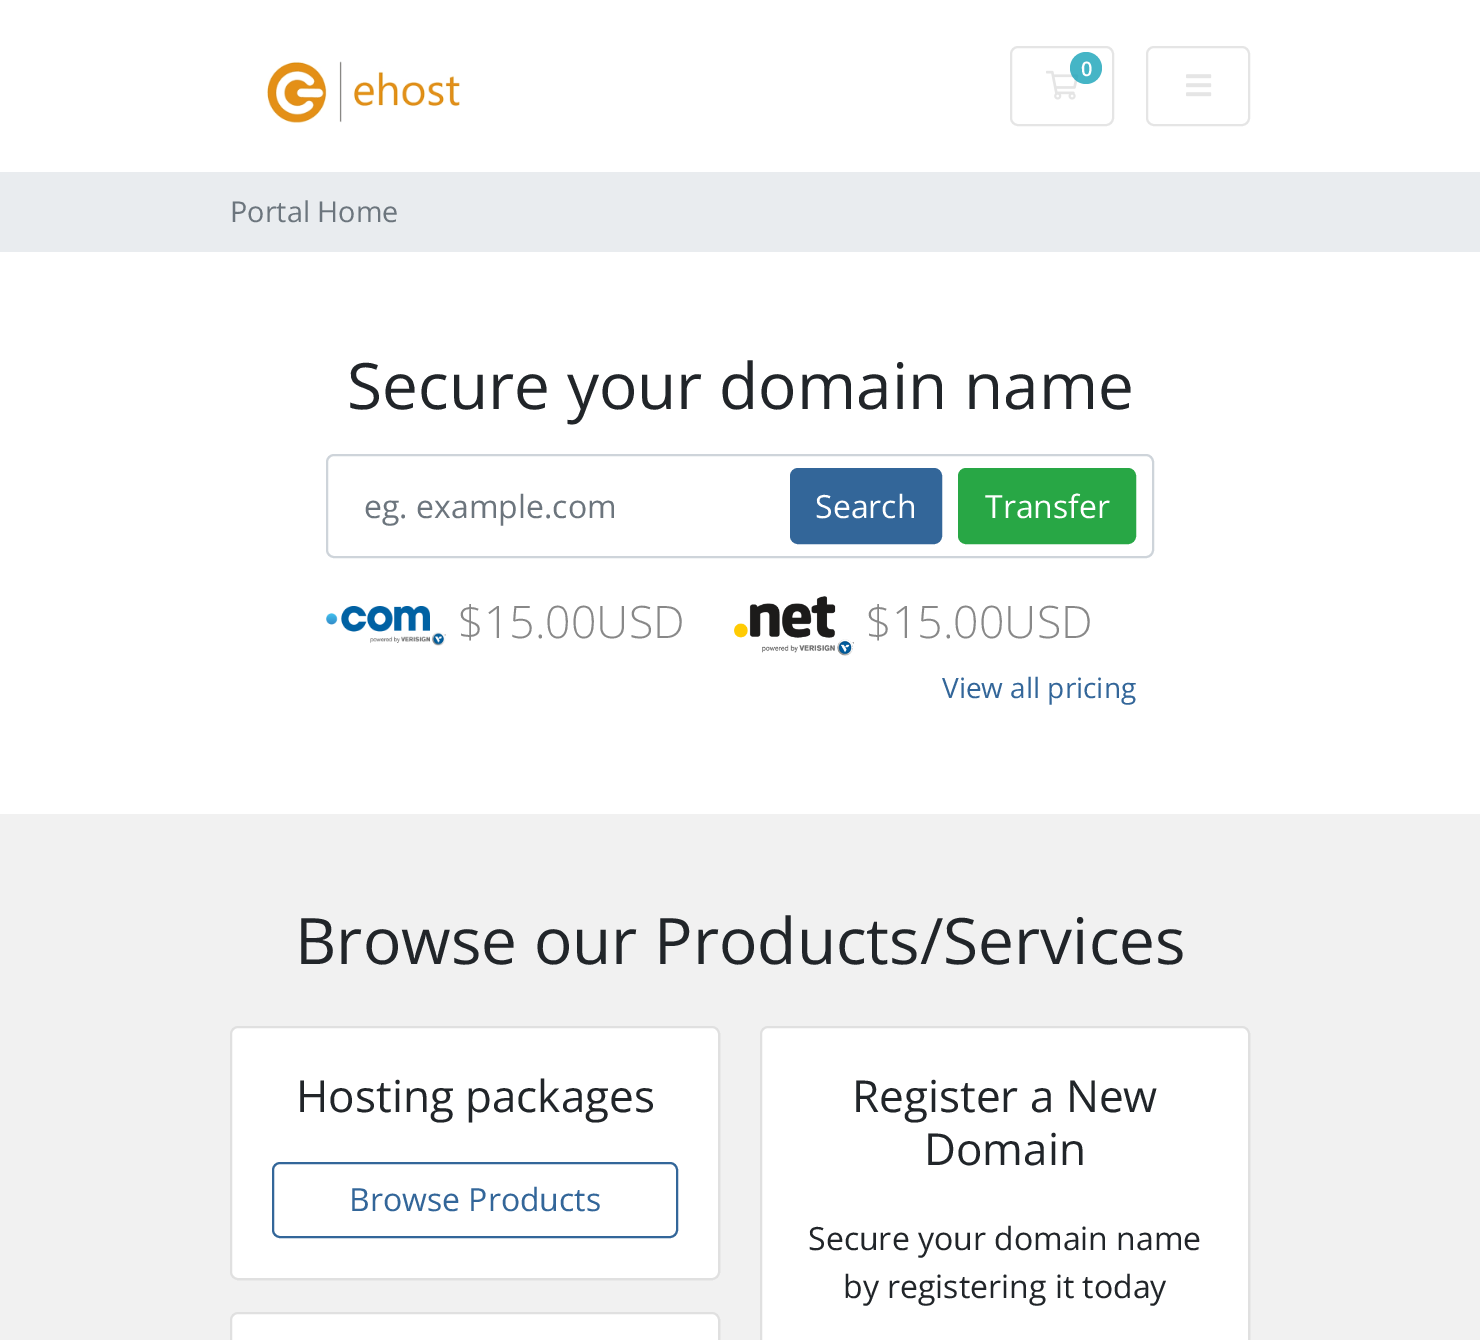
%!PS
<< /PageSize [1480 1340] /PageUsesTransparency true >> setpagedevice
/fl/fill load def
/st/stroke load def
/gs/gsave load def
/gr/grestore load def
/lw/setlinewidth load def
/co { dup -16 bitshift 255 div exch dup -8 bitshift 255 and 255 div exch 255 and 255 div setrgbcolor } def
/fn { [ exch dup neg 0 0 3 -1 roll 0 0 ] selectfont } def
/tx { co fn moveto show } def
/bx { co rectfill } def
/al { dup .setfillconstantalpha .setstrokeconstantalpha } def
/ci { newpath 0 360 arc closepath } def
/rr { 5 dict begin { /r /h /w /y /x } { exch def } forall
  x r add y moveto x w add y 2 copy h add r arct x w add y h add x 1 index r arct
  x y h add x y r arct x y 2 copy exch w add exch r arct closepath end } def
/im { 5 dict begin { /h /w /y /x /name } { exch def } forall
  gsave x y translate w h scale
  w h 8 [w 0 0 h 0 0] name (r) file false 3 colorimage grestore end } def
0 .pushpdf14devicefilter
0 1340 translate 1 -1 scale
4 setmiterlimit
0 0 1480 1340 16#F1F1F1 bx
0 0 1480 172 16#FFFFFF bx
(media/1.raw) 267 61 193 62 im
16#E5E5E5 co
2 lw
1011 47 102 78 7 rr st
(media/2.raw) 1046 70 33 30 im
0.8 al
16#17A2B8 co
1086 68 16 ci fl
1 al
16#E5E5E5 co
1147 47 102 78 7 rr st
(media/3.raw) 1186 74 26 23 im
0 172 1480 80 16#E9ECEF bx
0 252 1480 562 16#FFFFFF bx
16#CED4DA co
327 455 826 102 7 rr st
16#336699 co
791 469 150 74 7 rr gs fl gr
st
16#28A745 co
959 469 176 74 7 rr gs fl gr
st
(media/4.raw) 326 606 120 40 im
(media/5.raw) 734 596 120 60 im
16#FFFFFF co
230 1026 490 254 8 rr fl
0.12 al
16#000000 co
231 1027 488 252 7 rr st
1 al
16#336699 co
273 1163 404 74 7 rr st
16#FFFFFF co
760 1026 490 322 8 rr fl
0.12 al
16#000000 co
761 1027 488 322 7 rr st
1 al
16#FFFFFF co
230 1312 490 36 8 rr fl
0.12 al
16#000000 co
231 1313 488 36 7 rr st
1 al
(0) 1081 76 /OpenSans-SemiBold 20 16#FFFFFF tx
(Portal Home) 230 222 /OpenSans-Regular 28.75 16#6C757D tx
(Secure your domain name) 347 409 /OpenSans-Regular 64 16#212529 tx
(eg. example.com) 364 518 /OpenSans-Regular 32 16#6C757D tx
(Search) 815 518 /OpenSans-Regular 32 16#FFFFFF tx
(Transfer) 985 518 /OpenSans-Regular 32 16#FFFFFF tx
($15.00USD) 458 638 /OpenSans-Light 44.75 16#888888 tx
($15.00USD) 866 638 /OpenSans-Light 44.75 16#888888 tx
(View all pricing) 942 698 /OpenSans-Regular 28 16#336699 tx
(Browse our Products/Services) 295 964 /OpenSans-Regular 64 16#212529 tx
(Hosting packages) 296 1112 /OpenSans-Regular 44 16#212529 tx
(Browse Products) 349 1211 /OpenSans-Regular 32 16#336699 tx
(Register a New) 852 1112 /OpenSans-Regular 44 16#212529 tx
(Domain) 924 1165 /OpenSans-Regular 44 16#212529 tx
(Secure your domain name) 808 1250 /OpenSans-Regular 32 16#212529 tx
(by registering it today) 843 1298 /OpenSans-Regular 32 16#212529 tx
.poppdf14devicefilter showpage
